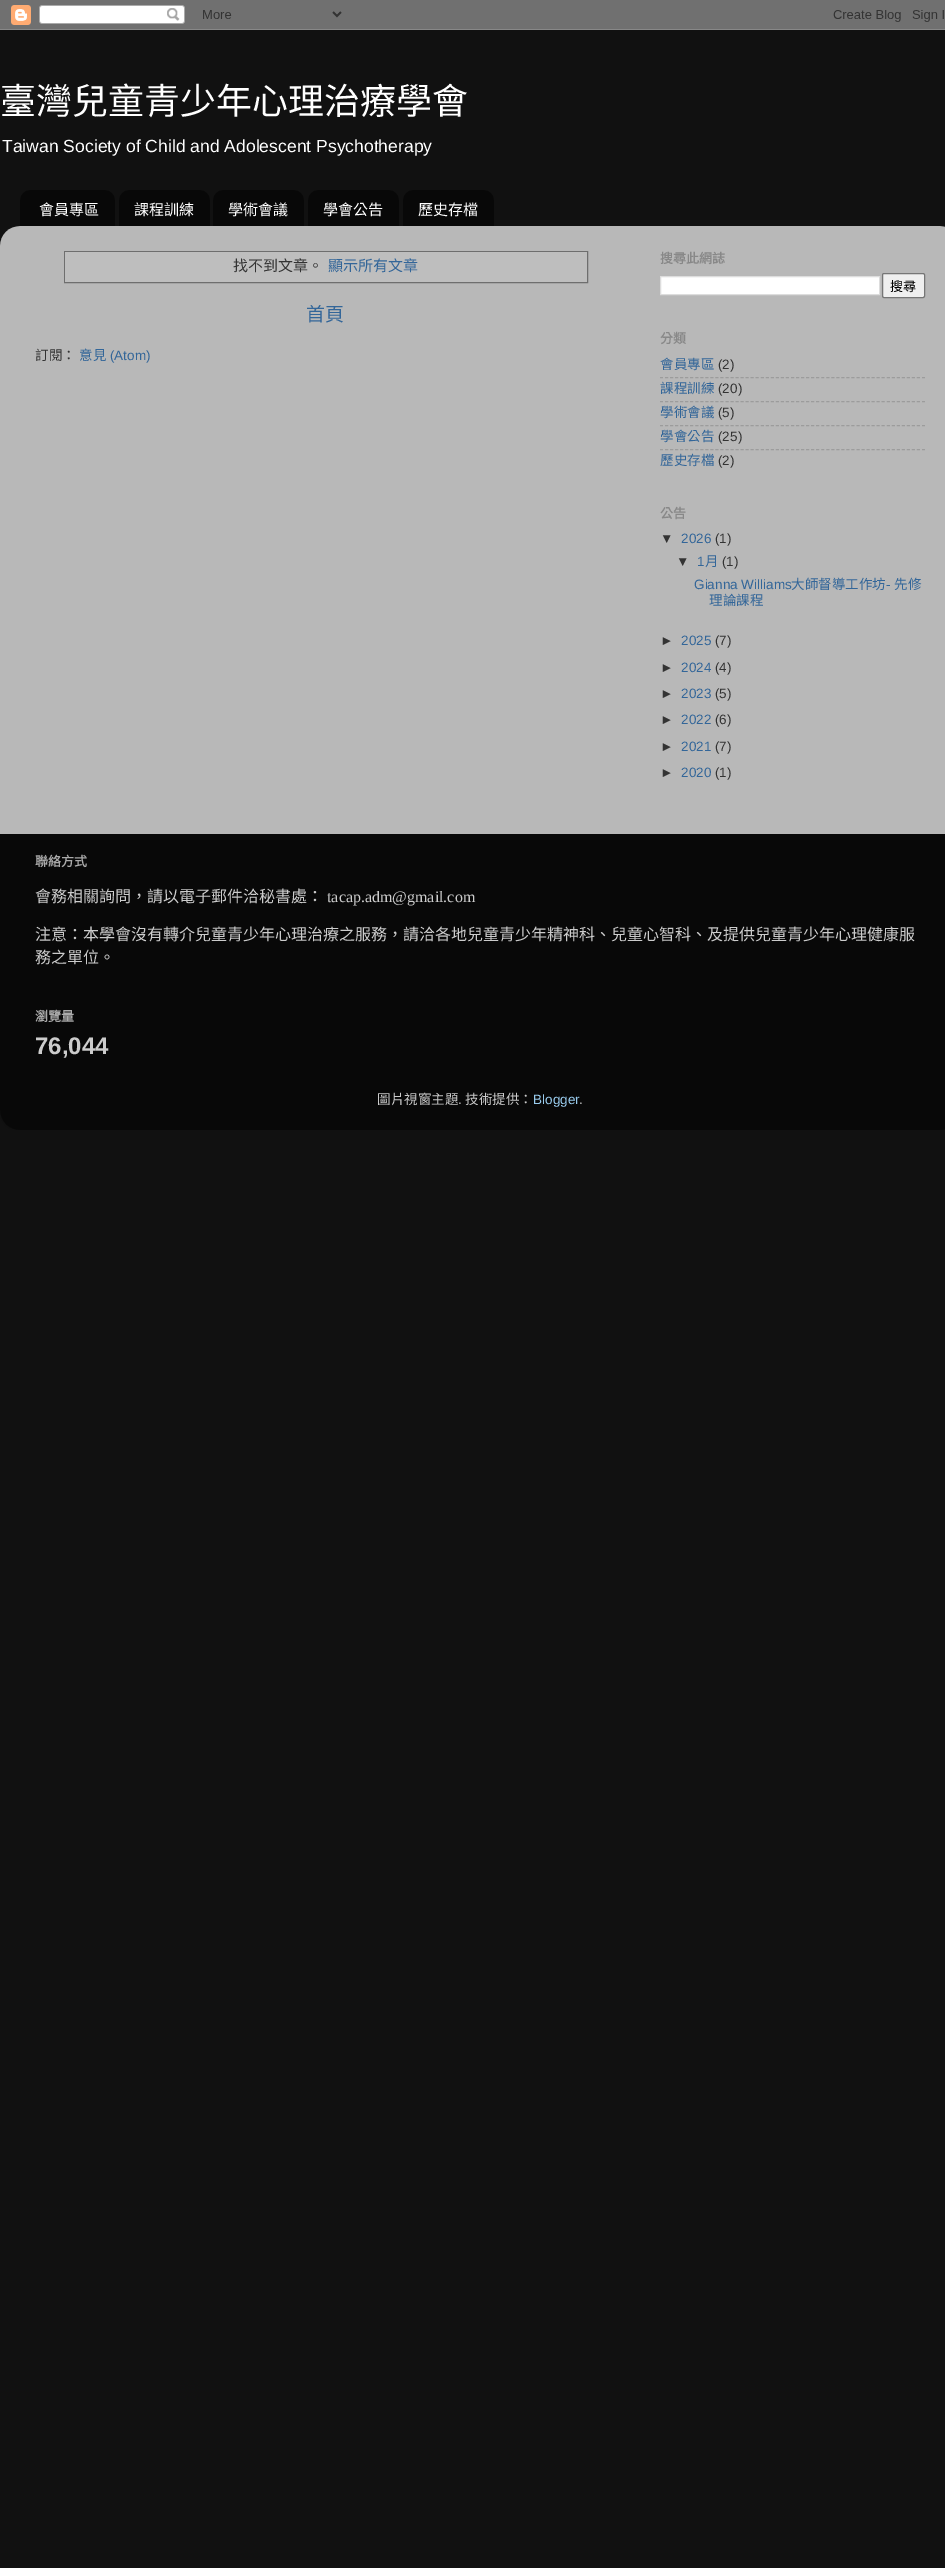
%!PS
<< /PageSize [945 2568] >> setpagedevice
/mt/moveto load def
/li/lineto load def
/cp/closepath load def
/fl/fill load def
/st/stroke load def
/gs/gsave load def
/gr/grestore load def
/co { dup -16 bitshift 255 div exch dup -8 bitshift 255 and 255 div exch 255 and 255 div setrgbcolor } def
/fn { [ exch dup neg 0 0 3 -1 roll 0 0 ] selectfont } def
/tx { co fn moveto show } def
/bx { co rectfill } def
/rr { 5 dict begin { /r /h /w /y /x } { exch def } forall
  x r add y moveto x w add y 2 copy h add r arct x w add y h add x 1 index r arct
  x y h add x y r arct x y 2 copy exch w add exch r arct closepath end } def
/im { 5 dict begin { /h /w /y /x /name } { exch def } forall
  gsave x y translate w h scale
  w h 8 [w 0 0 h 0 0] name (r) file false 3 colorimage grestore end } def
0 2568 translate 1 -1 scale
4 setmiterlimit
0 0 945 2568 16#111111 bx
(media/1.raw) 0 0 945 30 im
(media/2.raw) 20 190 95 36 im
(media/3.raw) 119 190 91 36 im
(media/3.raw) 213 190 91 36 im
(media/3.raw) 308 190 91 36 im
(media/4.raw) 403 190 91 36 im
(media/5.raw) 0 226 945 608 im
16#6E6E6E co
64.5 251.5 523 31 rectstroke
65 252 522 30 16#BEBEBE bx
16#FFFFFF co
660.5 276.5 mt 879.5 276.5 li 879.5 294.5 li 660.5 294.5 li cp gs fl gr
16#DDDDDD co
st
16#EFEFEF co
882.5 273.5 42 24 1.5 rr gs fl gr
16#767676 co
st
16#9C9C9C co
[3 2.04] 0 setdash
660 377.5 mt 925 377.5 li st
660 401.5 mt 925 401.5 li st
660 425.5 mt 925 425.5 li st
660 449.5 mt 925 449.5 li st
(media/6.raw) 0 834 945 296 im
(臺灣兒童青少年心理治療學會) 0 114 /NotoSansCJKTC-Regular 36 16#FFFFFF tx
(Taiwan Society of Child and Adolescent Psychotherapy) 2 152 /LiberationSans-Regular 17.55 16#FFFFFF tx
(會員專區) 39 215 /NotoSansCJKTC-Regular 15 16#FFFFFF tx
(課程訓練) 134 215 /NotoSansCJKTC-Regular 15 16#FFFFFF tx
(學術會議) 228 215 /NotoSansCJKTC-Regular 15 16#FFFFFF tx
(學會公告) 323 215 /NotoSansCJKTC-Regular 15 16#FFFFFF tx
(歷史存檔) 418 215 /NotoSansCJKTC-Regular 15 16#FFFFFF tx
(找不到文章。) 233 271 /NotoSansCJKTC-Regular 15 16#333333 tx
(顯示所有文章) 328 271 /NotoSansCJKTC-Regular 15 16#336699 tx
(首頁) 306 321 /NotoSansCJKTC-Regular 19 16#336699 tx
(訂閱：) 35 360 /NotoSansCJKTC-Regular 13.5 16#333333 tx
(意見) 79 360 /NotoSansCJKTC-Regular 13.5 16#336699 tx
(\(Atom\)) 110 360 /LiberationSans-Regular 13.5 16#336699 tx
(搜尋此網誌) 660 263 /NotoSansCJKTC-Bold 13 16#888888 tx
(搜尋) 890 291 /NotoSansCJKTC-Regular 13 16#000000 tx
(分類) 660 343 /NotoSansCJKTC-Bold 13 16#888888 tx
(會員專區) 660 369 /NotoSansCJKTC-Regular 13.5 16#336699 tx
(\(2\)) 718 369 /LiberationSans-Regular 13.5 16#333333 tx
(課程訓練) 660 393 /NotoSansCJKTC-Regular 13.5 16#336699 tx
(\(20\)) 718 393 /LiberationSans-Regular 13.5 16#333333 tx
(學術會議) 660 417 /NotoSansCJKTC-Regular 13.5 16#336699 tx
(\(5\)) 718 417 /LiberationSans-Regular 13.5 16#333333 tx
(學會公告) 660 441 /NotoSansCJKTC-Regular 13.5 16#336699 tx
(\(25\)) 718 441 /LiberationSans-Regular 13.5 16#333333 tx
(歷史存檔) 660 465 /NotoSansCJKTC-Regular 13.5 16#336699 tx
(\(2\)) 718 465 /LiberationSans-Regular 13.5 16#333333 tx
(公告) 660 518 /NotoSansCJKTC-Bold 13 16#888888 tx
(▼) 660 543 /LiberationSans-Regular 13.5 16#333333 tx
(2026) 681 543 /LiberationSans-Regular 13.5 16#336699 tx
(\(1\)) 715 543 /LiberationSans-Regular 13.5 16#333333 tx
(▼) 676 566 /LiberationSans-Regular 13.5 16#333333 tx
(1) 697 566 /LiberationSans-Regular 13.5 16#336699 tx
(月) 705 566 /NotoSansCJKTC-Regular 13.5 16#336699 tx
(\(1\)) 722 566 /LiberationSans-Regular 13.5 16#333333 tx
(Gianna Williams) 694 589 /LiberationSans-Regular 13.5 16#336699 tx
(大師督導工作坊) 791 589 /NotoSansCJKTC-Regular 13.5 16#336699 tx
(-) 886 589 /LiberationSans-Regular 13.5 16#336699 tx
(先修) 894 589 /NotoSansCJKTC-Regular 13.5 16#336699 tx
(理論課程) 709 605 /NotoSansCJKTC-Regular 13.5 16#336699 tx
(►) 660 645 /LiberationSans-Regular 13.5 16#333333 tx
(2025) 681 645 /LiberationSans-Regular 13.5 16#336699 tx
(\(7\)) 715 645 /LiberationSans-Regular 13.5 16#333333 tx
(►) 660 672 /LiberationSans-Regular 13.5 16#333333 tx
(2024) 681 672 /LiberationSans-Regular 13.5 16#336699 tx
(\(4\)) 715 672 /LiberationSans-Regular 13.5 16#333333 tx
(►) 660 698 /LiberationSans-Regular 13.5 16#333333 tx
(2023) 681 698 /LiberationSans-Regular 13.5 16#336699 tx
(\(5\)) 715 698 /LiberationSans-Regular 13.5 16#333333 tx
(►) 660 724 /LiberationSans-Regular 13.5 16#333333 tx
(2022) 681 724 /LiberationSans-Regular 13.5 16#336699 tx
(\(6\)) 715 724 /LiberationSans-Regular 13.5 16#333333 tx
(►) 660 751 /LiberationSans-Regular 13.5 16#333333 tx
(2021) 681 751 /LiberationSans-Regular 13.5 16#336699 tx
(\(7\)) 715 751 /LiberationSans-Regular 13.5 16#333333 tx
(►) 660 777 /LiberationSans-Regular 13.5 16#333333 tx
(2020) 681 777 /LiberationSans-Regular 13.5 16#336699 tx
(\(1\)) 715 777 /LiberationSans-Regular 13.5 16#333333 tx
(聯絡方式) 35 866 /NotoSansCJKTC-Bold 13 16#AAAAAA tx
(會務相關詢問，請以電子郵件洽秘書處：) 35 902 /NotoSansCJKTC-Regular 16 16#CCCCCC tx
(tacap.adm@gmail.com) 327 902 /LiberationSerif-Regular 16 16#CCCCCC tx
(注意：本學會沒有轉介兒童青少年心理治療之服務，請洽各地兒童青少年精神科、兒童心智科、及提供兒童青少年心理健康服) 35 940 /NotoSansCJKTC-Regular 16 16#CCCCCC tx
(務之單位。) 35 963 /NotoSansCJKTC-Regular 16 16#CCCCCC tx
(瀏覽量) 35 1021 /NotoSansCJKTC-Bold 13 16#AAAAAA tx
(76,044) 35 1054 /LiberationSans-Bold 24 16#CCCCCC tx
(圖片視窗主題) 377 1104 /NotoSansCJKTC-Regular 13.5 16#CCCCCC tx
(.) 458 1104 /LiberationSans-Regular 13.5 16#CCCCCC tx
(技術提供：) 465 1104 /NotoSansCJKTC-Regular 13.5 16#CCCCCC tx
(Blogger) 533 1104 /LiberationSans-Regular 13.5 16#99CCEE tx
(.) 579 1104 /LiberationSans-Regular 13.5 16#CCCCCC tx
showpage
